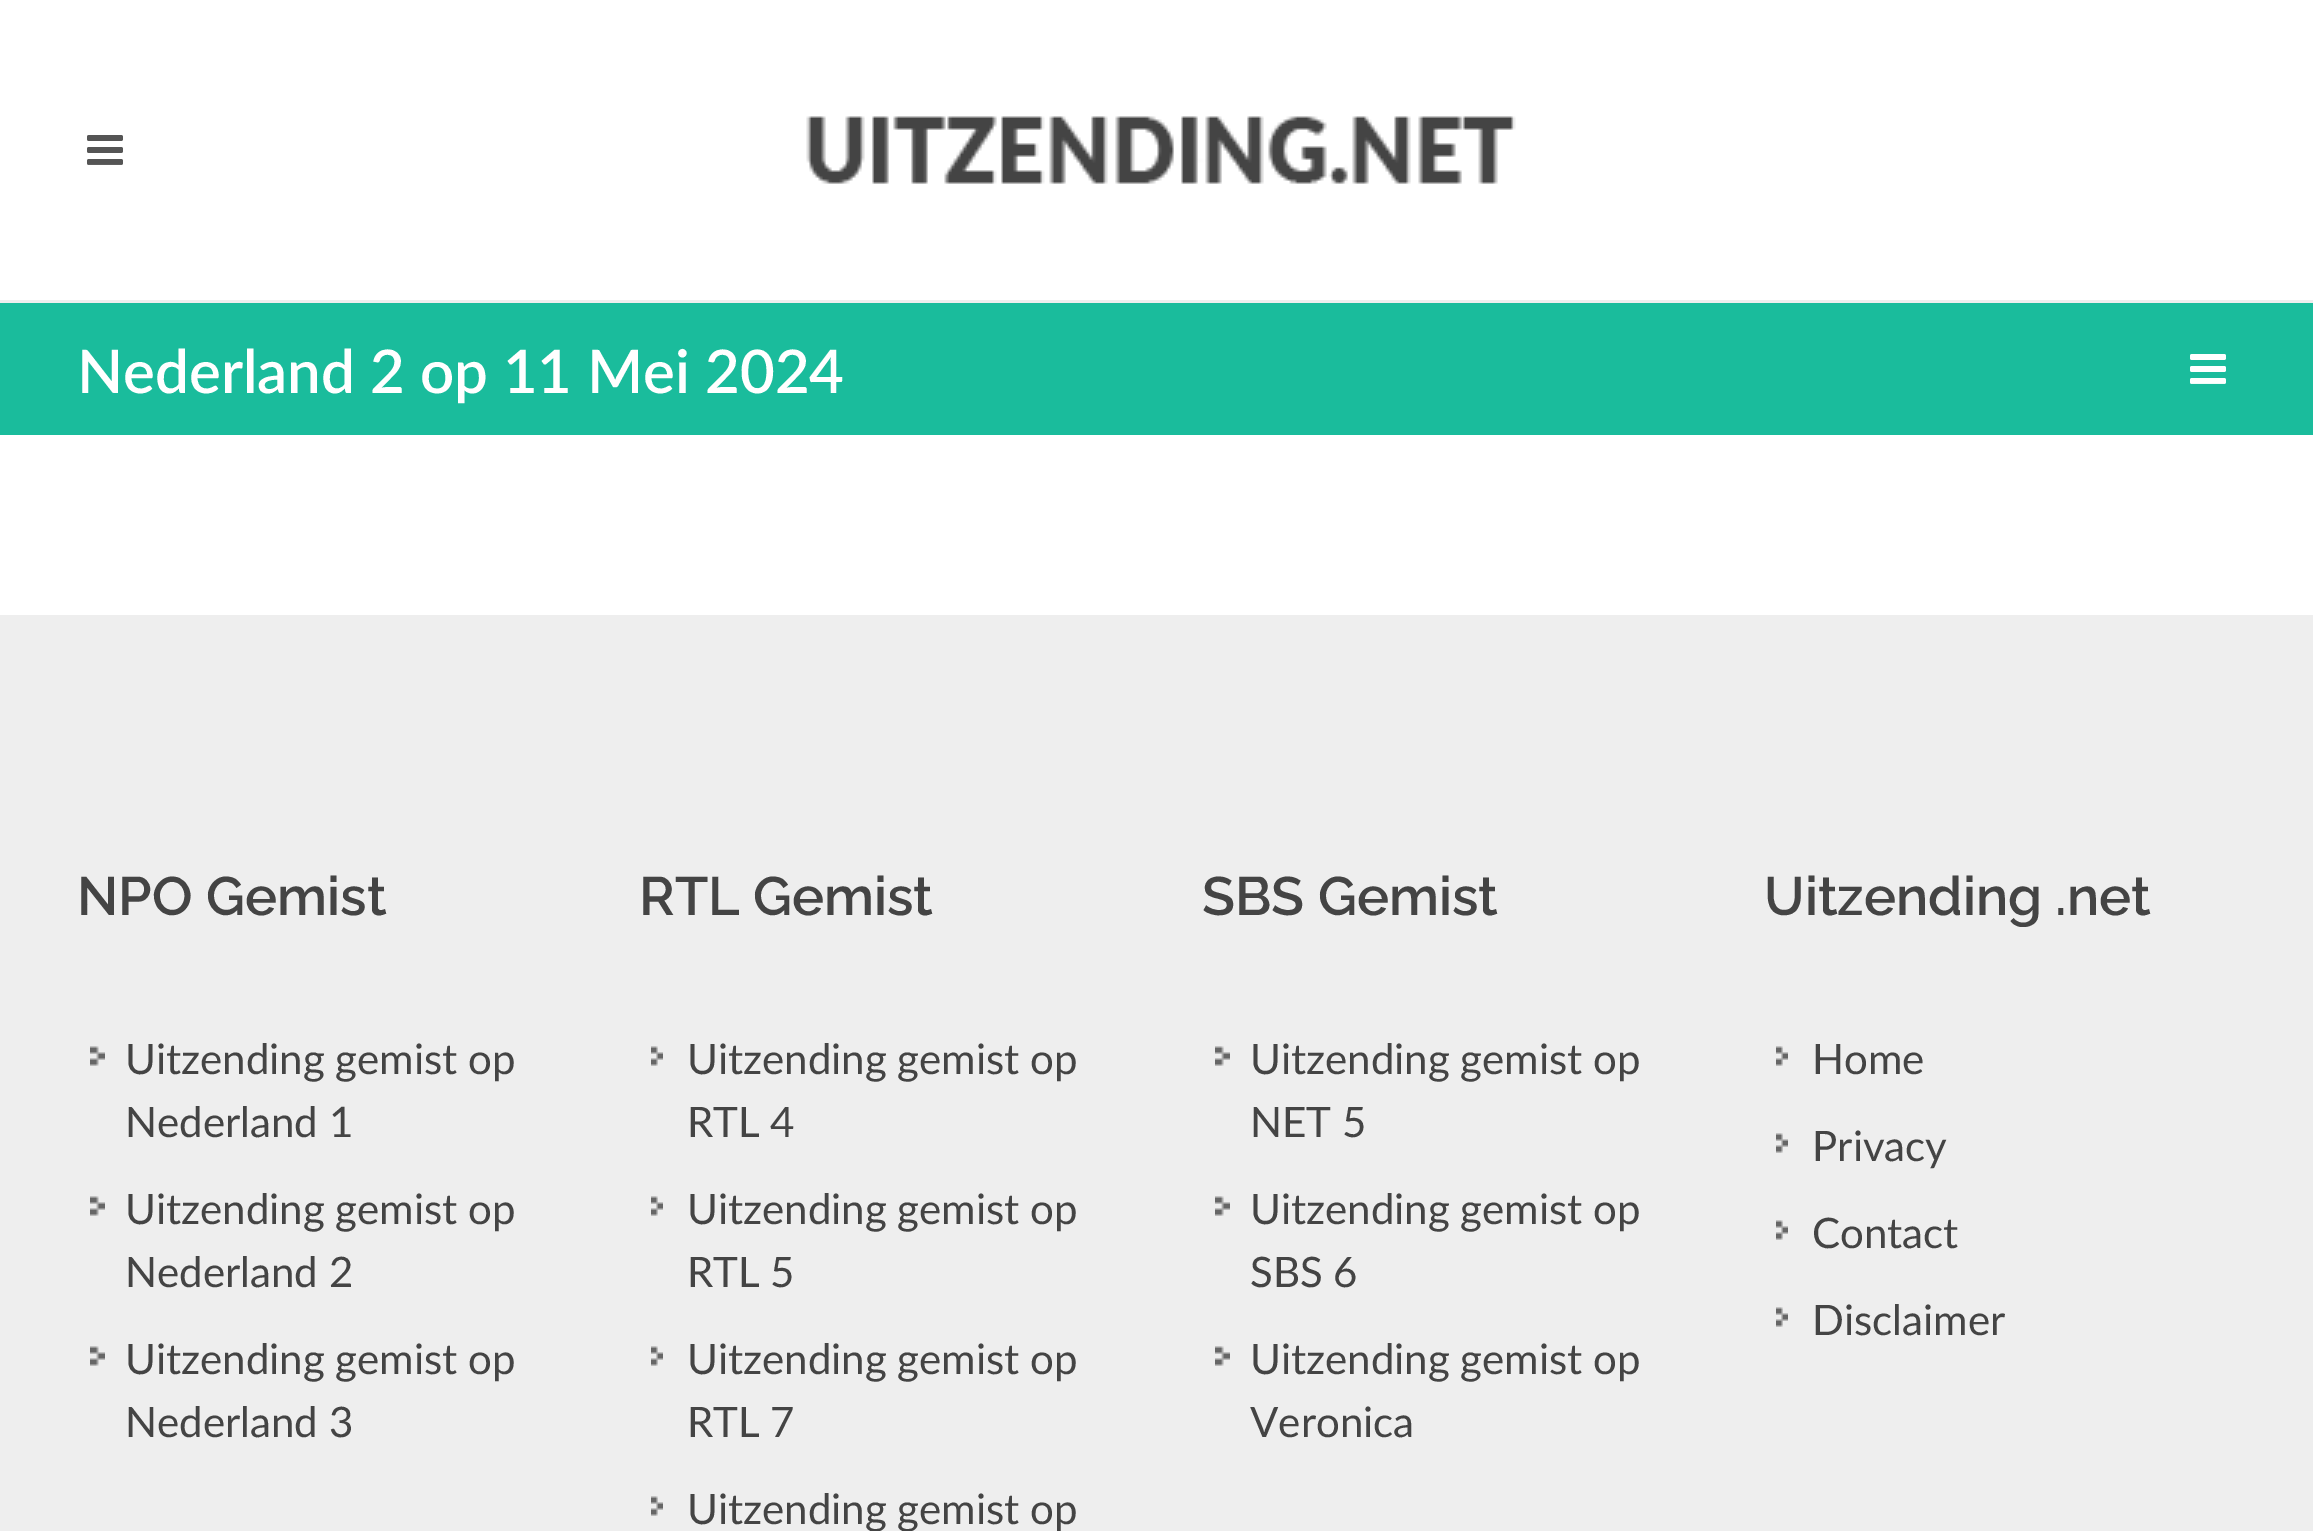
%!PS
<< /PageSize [2313 1531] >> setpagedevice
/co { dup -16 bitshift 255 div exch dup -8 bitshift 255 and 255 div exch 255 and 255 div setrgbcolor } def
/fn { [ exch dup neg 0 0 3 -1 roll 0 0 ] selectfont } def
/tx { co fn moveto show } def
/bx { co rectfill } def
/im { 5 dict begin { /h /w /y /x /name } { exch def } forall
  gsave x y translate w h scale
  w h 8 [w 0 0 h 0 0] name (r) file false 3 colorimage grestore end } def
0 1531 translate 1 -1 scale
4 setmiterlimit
0 0 2313 1531 16#FFFFFF bx
0 300 2313 3 16#EEEEEE bx
(media/1.raw) 87 135 36 30 im
(media/2.raw) 806 116 710 68 im
0 303 2313 132 16#1ABC9C bx
(media/3.raw) 2190 354 36 30 im
0 615 2313 916 16#EEEEEE bx
(media/4.raw) 90 1046 15 20 im
(media/4.raw) 90 1196 15 20 im
(media/4.raw) 90 1346 15 20 im
(media/5.raw) 651 1046 12 20 im
(media/5.raw) 651 1196 12 20 im
(media/5.raw) 651 1346 12 20 im
(media/5.raw) 651 1496 12 20 im
(media/6.raw) 1215 1046 15 20 im
(media/6.raw) 1215 1196 15 20 im
(media/6.raw) 1215 1346 15 20 im
(media/5.raw) 1776 1046 12 20 im
(media/5.raw) 1776 1133 12 20 im
(media/5.raw) 1776 1220 12 20 im
(media/5.raw) 1776 1307 12 20 im
(Nederland 2 op 11 Mei 2024) 77 393 /Lato-SemiBold 60 16#FFFFFF tx
(NPO Gemist) 77 915 /Raleway-SemiBold 54 16#444444 tx
(Uitzending gemist op) 125 1074 /Lato-Regular 42 16#444444 tx
(Nederland 1) 125 1137 /Lato-Regular 42 16#444444 tx
(Uitzending gemist op) 125 1224 /Lato-Regular 42 16#444444 tx
(Nederland 2) 125 1287 /Lato-Regular 42 16#444444 tx
(Uitzending gemist op) 125 1374 /Lato-Regular 42 16#444444 tx
(Nederland 3) 125 1437 /Lato-Regular 42 16#444444 tx
(RTL Gemist) 639 915 /Raleway-SemiBold 54 16#444444 tx
(Uitzending gemist op) 687 1074 /Lato-Regular 42 16#444444 tx
(RTL 4) 687 1137 /Lato-Regular 42 16#444444 tx
(Uitzending gemist op) 687 1224 /Lato-Regular 42 16#444444 tx
(RTL 5) 687 1287 /Lato-Regular 42 16#444444 tx
(Uitzending gemist op) 687 1374 /Lato-Regular 42 16#444444 tx
(RTL 7) 687 1437 /Lato-Regular 42 16#444444 tx
(Uitzending gemist op) 687 1524 /Lato-Regular 42 16#444444 tx
(SBS Gemist) 1202 915 /Raleway-SemiBold 54 16#444444 tx
(Uitzending gemist op) 1250 1074 /Lato-Regular 42 16#444444 tx
(NET 5) 1250 1137 /Lato-Regular 42 16#444444 tx
(Uitzending gemist op) 1250 1224 /Lato-Regular 42 16#444444 tx
(SBS 6) 1250 1287 /Lato-Regular 42 16#444444 tx
(Uitzending gemist op) 1250 1374 /Lato-Regular 42 16#444444 tx
(Veronica) 1250 1437 /Lato-Regular 42 16#444444 tx
(Uitzending .net) 1764 915 /Raleway-SemiBold 54 16#444444 tx
(Home) 1812 1074 /Lato-Regular 42 16#444444 tx
(Privacy) 1812 1161 /Lato-Regular 42 16#444444 tx
(Contact) 1812 1248 /Lato-Regular 42 16#444444 tx
(Disclaimer) 1812 1335 /Lato-Regular 42 16#444444 tx
showpage
